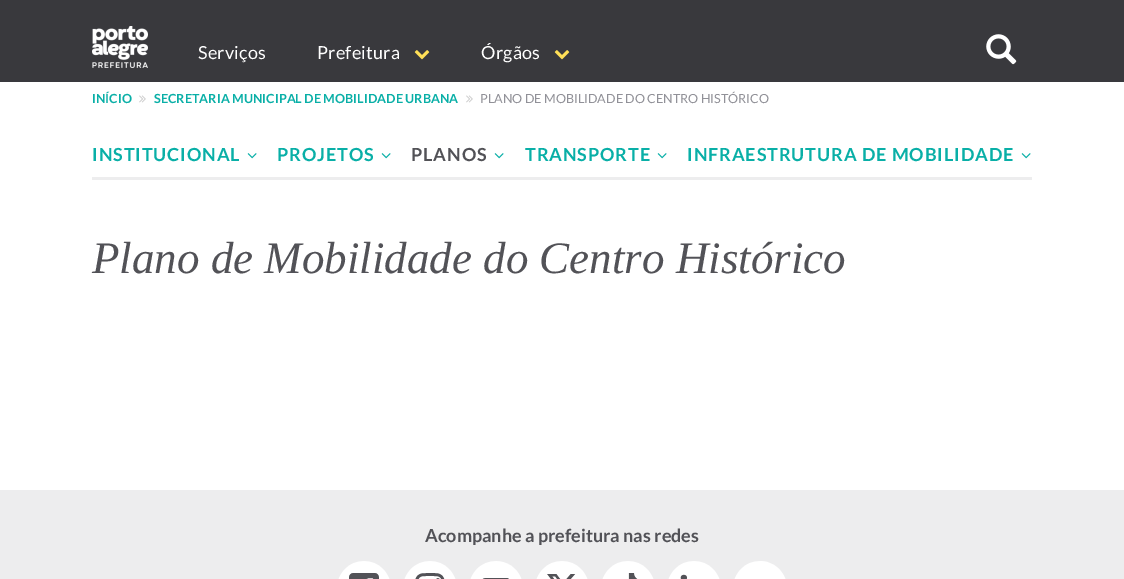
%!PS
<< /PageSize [1124 579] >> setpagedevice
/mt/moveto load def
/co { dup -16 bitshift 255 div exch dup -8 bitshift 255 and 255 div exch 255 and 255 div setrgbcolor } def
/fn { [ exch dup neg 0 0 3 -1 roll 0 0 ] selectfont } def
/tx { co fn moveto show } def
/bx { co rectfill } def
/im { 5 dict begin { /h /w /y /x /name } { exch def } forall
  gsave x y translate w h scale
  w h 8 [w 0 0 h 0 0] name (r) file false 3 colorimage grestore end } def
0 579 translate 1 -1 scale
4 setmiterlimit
0 0 1124 579 16#FFFFFF bx
0 0 1124 82 16#39393D bx
(media/1.raw) 92 26 56 42 im
(media/2.raw) 414 50 16 10 im
(media/2.raw) 554 50 16 10 im
(media/3.raw) 986 34 31 31 im
(media/4.raw) 139 95 7 8 im
(media/4.raw) 466 95 7 8 im
92 177 940 3 16#EDEDEE bx
(media/5.raw) 247 153 10 6 im
(media/5.raw) 381 153 10 6 im
(media/5.raw) 494 153 10 6 im
(media/5.raw) 657 153 10 6 im
(media/5.raw) 1021 153 10 6 im
0 490 1124 89 16#EDEDEE bx
(media/6.raw) 338 561 52 18 im
(media/7.raw) 404 561 52 18 im
(media/8.raw) 470 561 52 18 im
(media/9.raw) 536 561 52 18 im
(media/10.raw) 602 561 52 18 im
(media/11.raw) 668 561 52 18 im
(media/12.raw) 734 561 52 18 im
/Lato-Regular 18 fn
16#FFFFFF co
198 59 mt .25 0 (Serviços) ashow
317 59 mt .25 0 (Prefeitura) ashow
481 59 mt .25 0 (Órgãos) ashow
(INÍCIO) 92 103 /Lato-Bold 12.6 16#09AFA7 tx
(SECRETARIA MUNICIPAL DE MOBILIDADE URBANA) 154 103 /Lato-Bold 12.6 16#09AFA7 tx
(PLANO DE MOBILIDADE DO CENTRO HISTÓRICO) 480 103 /Lato-Regular 12.6 16#919198 tx
/Lato-Bold 18 fn
16#09AFA7 co
92 161 mt .9 0 (INSTITUCIONAL) ashow
277 161 mt .9 0 (PROJETOS) ashow
16#525257 co
411 161 mt .9 0 (PLANOS) ashow
16#09AFA7 co
525 161 mt .9 0 (TRANSPORTE) ashow
687 161 mt .9 0 (INFRAESTRUTURA DE MOBILIDADE) ashow
(Plano de Mobilidade do Centro Histórico) 92 273 /LiberationSerif-Italic 45 16#525257 tx
(Acompanhe a prefeitura nas redes) 425 542 /Lato-Bold 18 16#525257 tx
showpage
